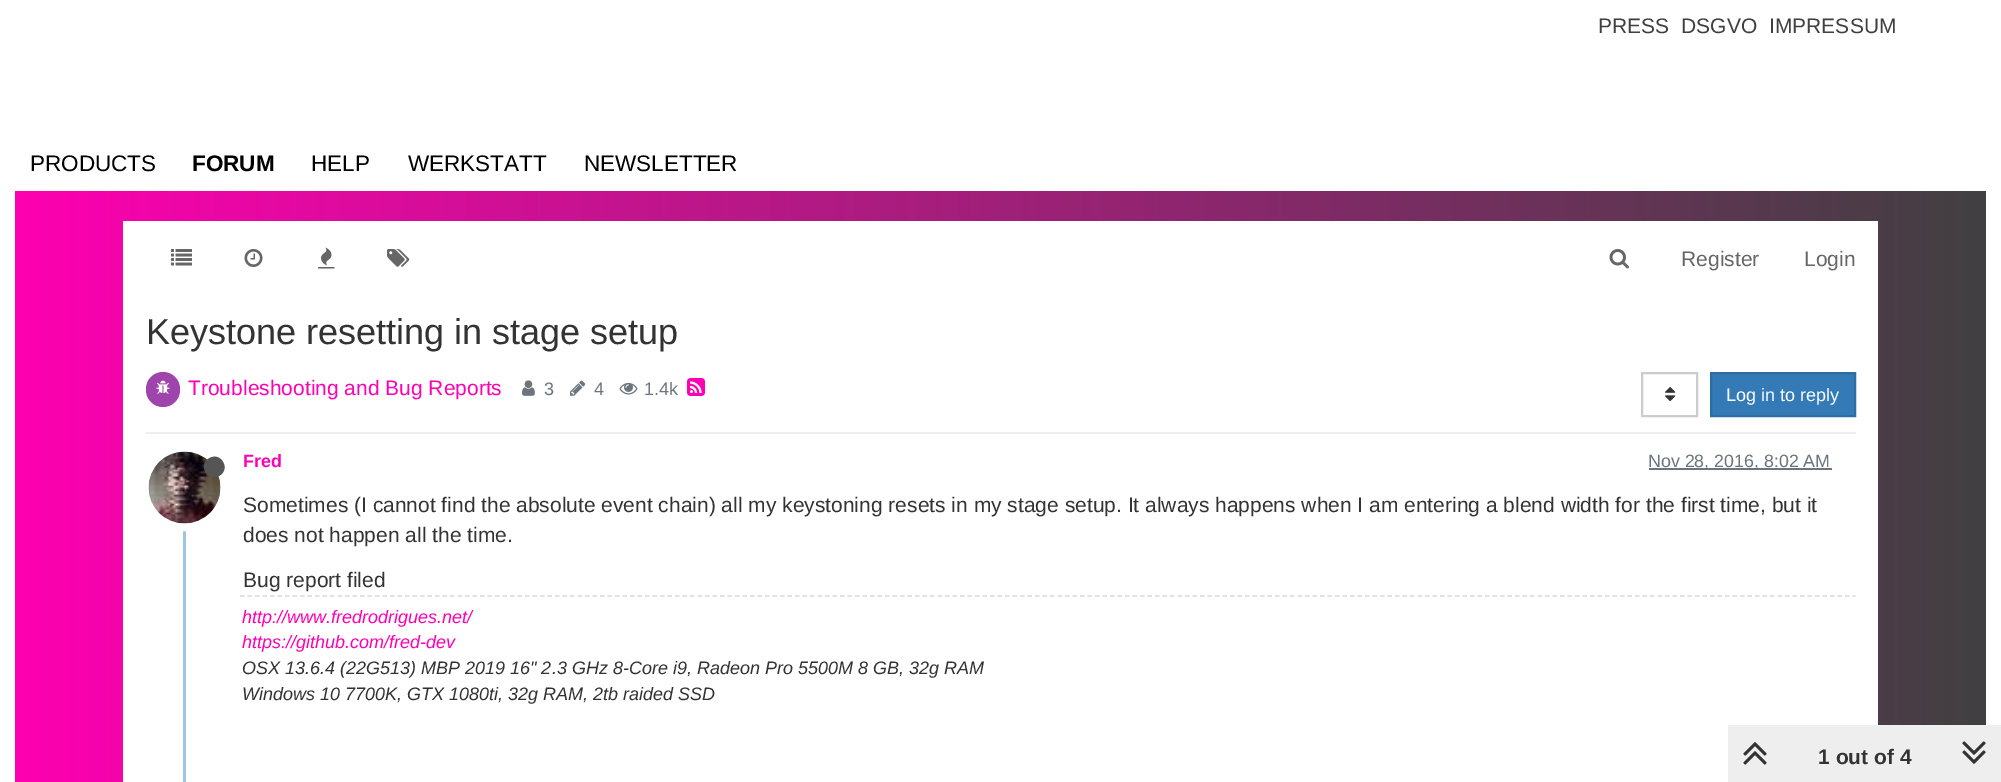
%!PS
<< /PageSize [2001 782] >> setpagedevice
/mt/moveto load def
/li/lineto load def
/ct/curveto load def
/cp/closepath load def
/fl/fill load def
/st/stroke load def
/gs/gsave load def
/gr/grestore load def
/lw/setlinewidth load def
/co { dup -16 bitshift 255 div exch dup -8 bitshift 255 and 255 div exch 255 and 255 div setrgbcolor } def
/fn { [ exch dup neg 0 0 3 -1 roll 0 0 ] selectfont } def
/tx { co fn moveto show } def
/bx { co rectfill } def
/ci { newpath 0 360 arc closepath } def
/rr { 5 dict begin { /r /h /w /y /x } { exch def } forall
  x r add y moveto x w add y 2 copy h add r arct x w add y h add x 1 index r arct
  x y h add x y r arct x y 2 copy exch w add exch r arct closepath end } def
/im { 5 dict begin { /h /w /y /x /name } { exch def } forall
  gsave x y translate w h scale
  w h 8 [w 0 0 h 0 0] name (r) file false 3 colorimage grestore end } def
0 782 translate 1 -1 scale
4 setmiterlimit
0 0 2001 782 16#FFFFFF bx
gs 15 191 mt 1986 191 li 1986 782 li 15 782 li cp clip newpath
<< /ShadingType 2 /ColorSpace /DeviceRGB /Coords [0 392 2001 391] /Extend [true true] /Function << /FunctionType 2 /Domain [0 1] /C0 [1 0 .698] /C1 [.251 .251 .251] /N 1 >> >> shfill gr
123 221 1755 561 16#FFFFFF bx
(media/1.raw) 171 249 21 17 im
(media/2.raw) 244 249 19 18 im
(media/3.raw) 318 247 17 22 im
(media/4.raw) 387 249 23 18 im
(media/5.raw) 1609 249 20 20 im
146 432 1710 2 16#EEEEEE bx
16#9F44AD co
146 372 34 35 17 rr fl
(media/6.raw) 156 380 14 14 im
(media/7.raw) 522 380 13 16 im
(media/8.raw) 570 380 16 16 im
(media/9.raw) 619 382 19 13 im
(media/10.raw) 687 378 18 18 im
16#CCCCCC co
2 lw
1642 373 55 43 rectstroke
(media/11.raw) 1665 387 11 15 im
16#337AB7 co
1711 373 mt 1855 373 li 1855 416 li 1711 416 li cp gs fl gr
16#2E6DA4 co
st
183 530 3 252 16#A0C4E4 bx
16#FFFFFF co
8 lw
184.5 487.5 39.5 ci st
(media/12.raw) 148 451 73 73 im
16#555555 co
223 462 mt 230 473.5 212 484 205.5 472 ct 198.5 460.5 216.5 450 223 462 ct cp fl
1649 468 183 2 16#6C757D bx
16#DEDEDE co
1.5 lw
[4.5 3] 0 setdash
240 596 mt 1855.5 596 li st
1728 725 273 57 16#EEEEEE bx
(media/13.raw) 1743 742 24 23 im
(media/14.raw) 1962 741 24 23 im
(PRESS) 1598 33 /LiberationSans-Regular 21 16#404040 tx
(DSGVO) 1681 33 /LiberationSans-Regular 21 16#404040 tx
(IMPRESSUM) 1769 33 /LiberationSans-Regular 21 16#404040 tx
(PRODUCTS) 30 171 /LiberationSans-Regular 22.5 16#000000 tx
(FORUM) 192 171 /LiberationSans-Bold 22.5 16#000000 tx
(HELP) 311 171 /LiberationSans-Regular 22.5 16#000000 tx
(WERKSTATT) 408 171 /LiberationSans-Regular 22.5 16#000000 tx
(NEWSLETTER) 584 171 /LiberationSans-Regular 22.5 16#000000 tx
(Register) 1681 266 /LiberationSans-Regular 21 16#666666 tx
(Login) 1804 266 /LiberationSans-Regular 21 16#666666 tx
(Keystone resetting in stage setup) 146 344 /LiberationSans-Regular 36 16#333333 tx
(Troubleshooting and Bug Reports) 188 395 /LiberationSans-Regular 21 16#FF00B2 tx
(3) 544 395 /LiberationSans-Regular 18 16#6C757D tx
(4) 594 395 /LiberationSans-Regular 18 16#6C757D tx
(1.4k) 644 395 /LiberationSans-Regular 18 16#6C757D tx
(Log in to reply) 1726 401 /LiberationSans-Regular 18 16#FFFFFF tx
(Fred) 243 467 /LiberationSans-Bold 17.8 16#FF00B2 tx
(Nov 28, 2016, 8:02 AM) 1648 467 /LiberationSans-Regular 17.8 16#6C757D tx
(Sometimes \(I cannot find the absolute event chain\) all my keystoning resets in my stage setup. It always happens when I am entering a blend width for the first time, but it) 243 512 /LiberationSans-Regular 21 16#333333 tx
(does not happen all the time.) 243 542 /LiberationSans-Regular 21 16#333333 tx
(Bug report filed) 243 587 /LiberationSans-Regular 21 16#333333 tx
(http://www.fredrodrigues.net/) 242 623 /LiberationSans-Italic 18 16#FF00B2 tx
(https://github.com/fred-dev) 242 648 /LiberationSans-Italic 18 16#FF00B2 tx
(OSX 13.6.4 \(22G513\) MBP 2019 16" 2.3 GHz 8-Core i9, Radeon Pro 5500M 8 GB, 32g RAM) 242 674 /LiberationSans-Italic 18 16#333333 tx
(Windows 10 7700K, GTX 1080ti, 32g RAM, 2tb raided SSD) 242 700 /LiberationSans-Italic 18 16#333333 tx
(1 out of 4) 1818 764 /LiberationSans-Bold 21 16#333333 tx
showpage
